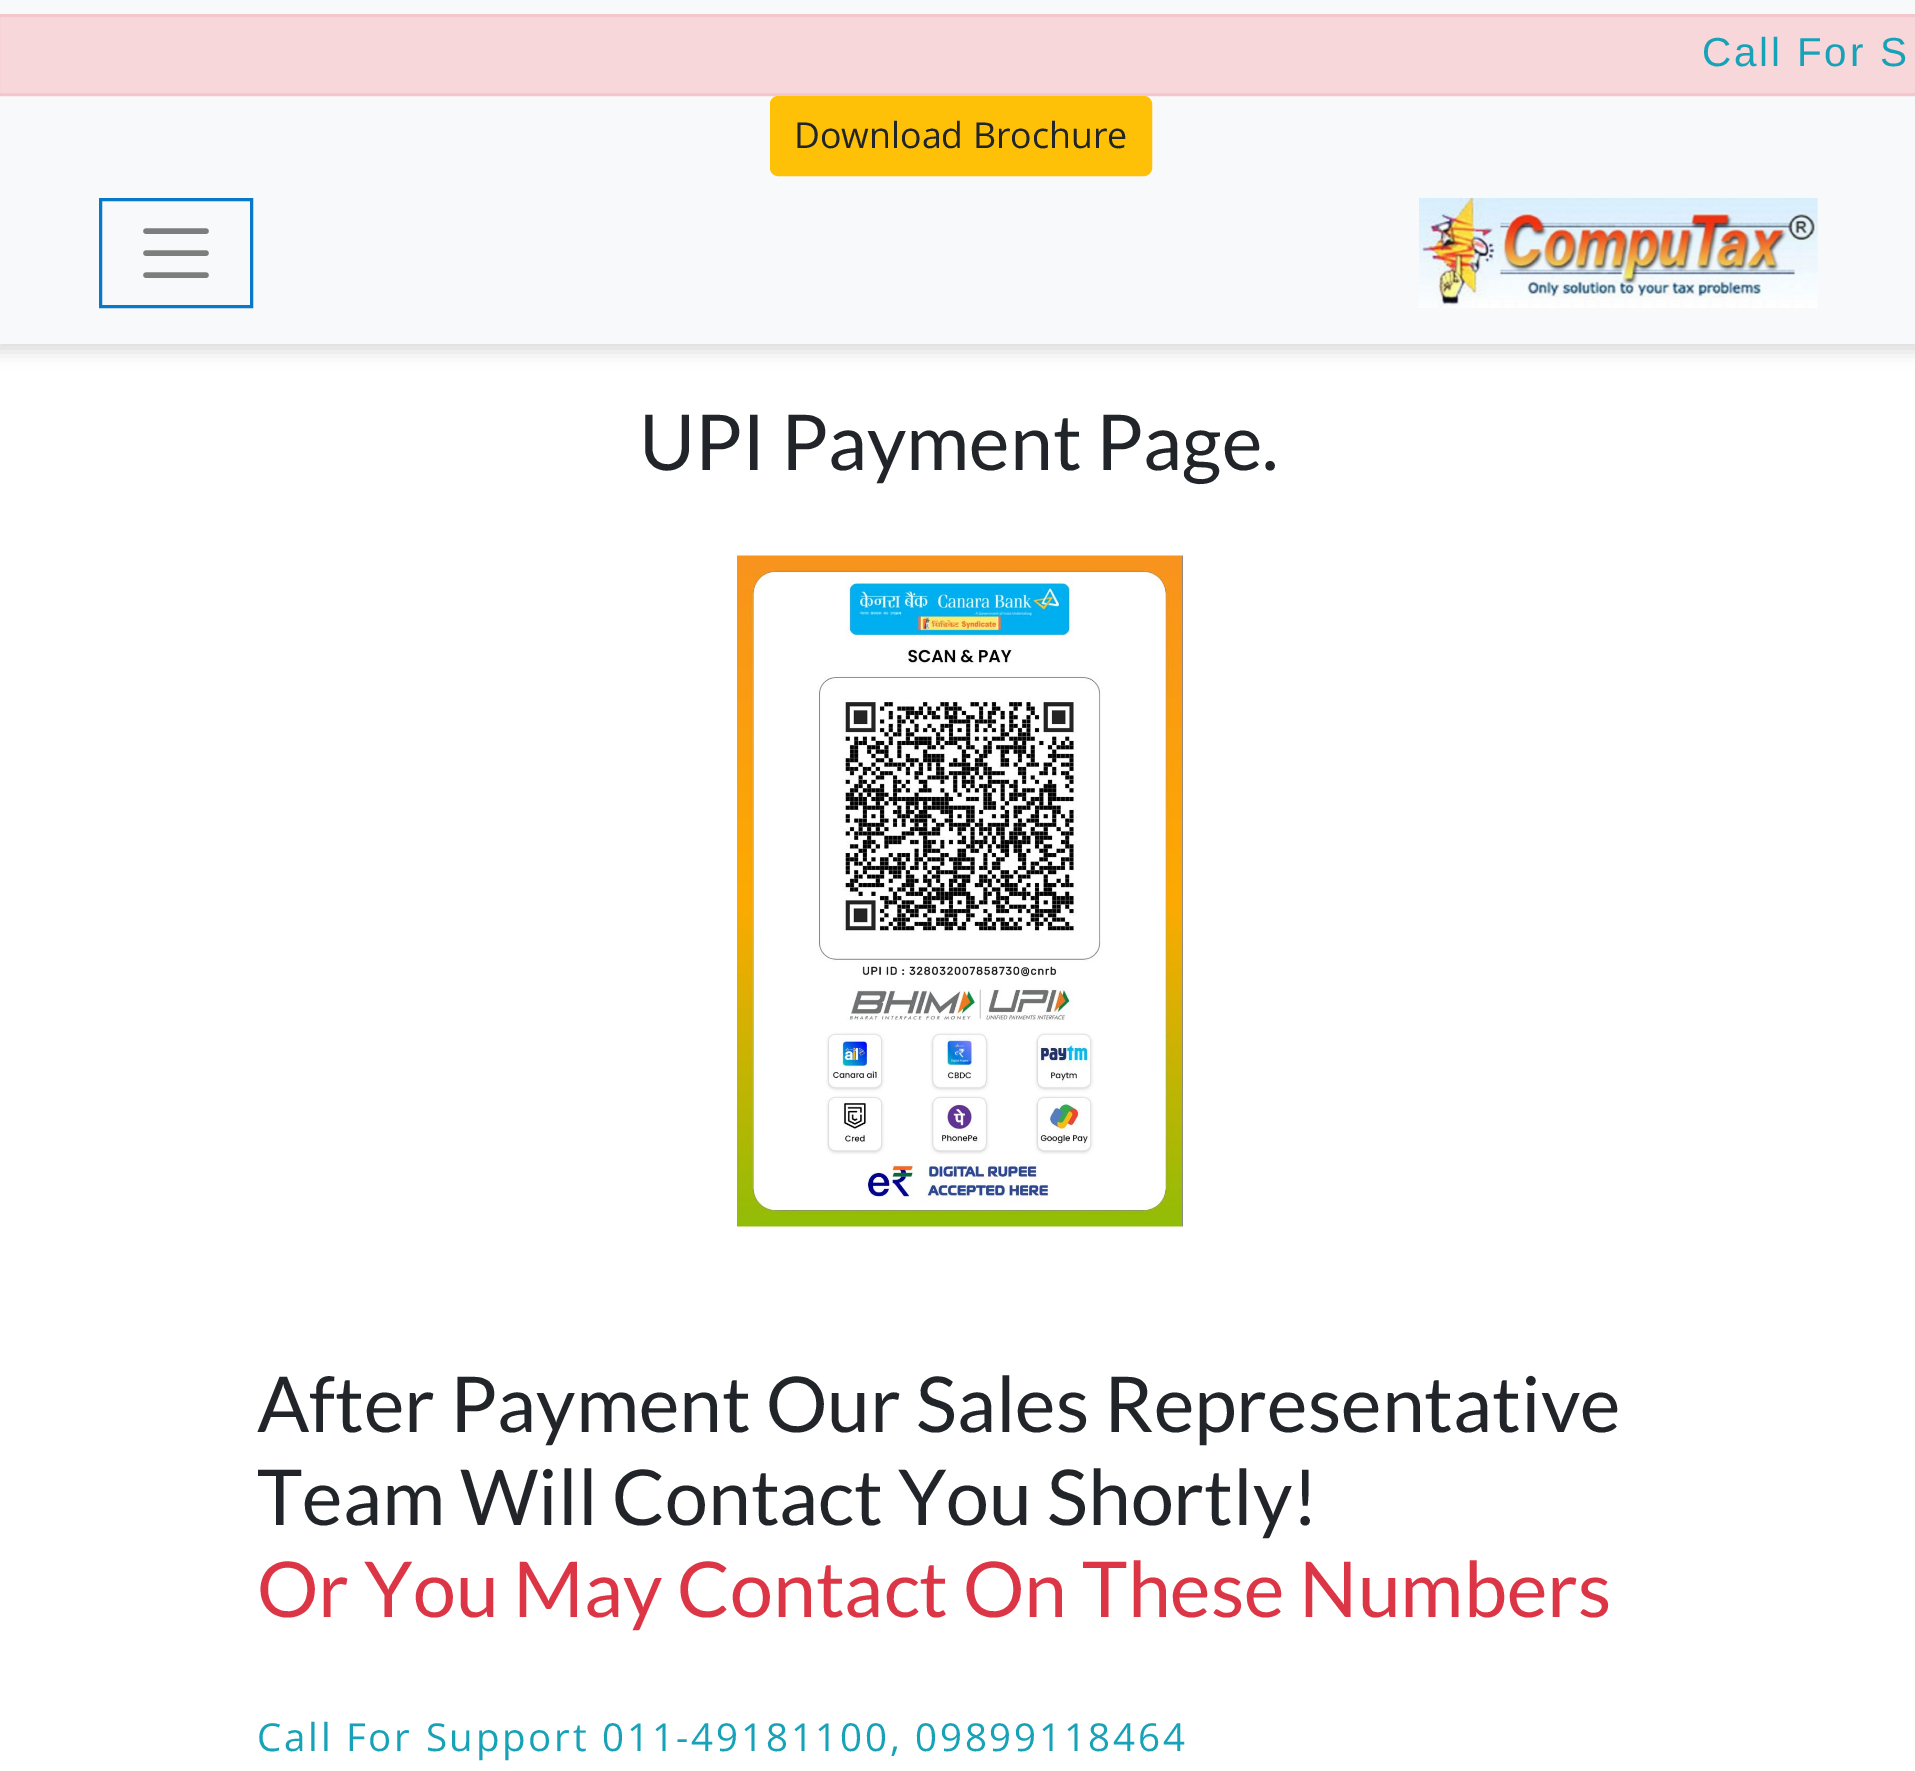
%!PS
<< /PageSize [1915 1771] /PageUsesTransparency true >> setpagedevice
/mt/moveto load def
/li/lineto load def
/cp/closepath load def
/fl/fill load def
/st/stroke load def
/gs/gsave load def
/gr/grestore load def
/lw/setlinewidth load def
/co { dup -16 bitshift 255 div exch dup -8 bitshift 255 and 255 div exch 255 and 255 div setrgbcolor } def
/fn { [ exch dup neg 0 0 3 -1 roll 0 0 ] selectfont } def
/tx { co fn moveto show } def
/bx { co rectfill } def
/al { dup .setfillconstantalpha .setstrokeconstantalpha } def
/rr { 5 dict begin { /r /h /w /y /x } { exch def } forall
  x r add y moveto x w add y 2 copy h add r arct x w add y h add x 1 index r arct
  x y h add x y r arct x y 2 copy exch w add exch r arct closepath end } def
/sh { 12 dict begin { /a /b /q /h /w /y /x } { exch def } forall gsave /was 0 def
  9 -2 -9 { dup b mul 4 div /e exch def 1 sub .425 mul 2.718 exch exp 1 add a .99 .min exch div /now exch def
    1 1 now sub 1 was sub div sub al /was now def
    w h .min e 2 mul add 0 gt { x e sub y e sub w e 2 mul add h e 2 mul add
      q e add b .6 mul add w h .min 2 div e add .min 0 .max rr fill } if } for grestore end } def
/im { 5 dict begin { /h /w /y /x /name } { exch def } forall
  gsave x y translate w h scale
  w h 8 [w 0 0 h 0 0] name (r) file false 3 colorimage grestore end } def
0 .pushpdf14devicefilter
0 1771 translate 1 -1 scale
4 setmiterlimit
0 0 1915 1771 16#FFFFFF bx
16#000000 co
-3 3 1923 349 0 8 .13 sh
0 0 1915 344 16#F8F9FA bx
16#F8D7DA co
-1.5 15.5 mt 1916.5 15.5 li 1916.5 94.5 li -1.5 94.5 li cp gs fl gr
16#F5C6CB co
3 lw
st
16#FFC107 co
771.5 97.5 379 77 6.5 rr gs fl gr
st
16#0879C9 co
100.5 199.5 151 107 rectstroke
16#7C7D7D co
5.5 lw
1 setlinecap
146 231 mt 206 231 li 146 253 mt 206 253 li 146 275 mt 206 275 li st
(media/1.raw) 1419 198 399 110 im
(media/2.raw) 737 555 446 672 im
/LiberationSans-Regular 40.5 fn
16#17A2B8 co
1702 66 mt 2.75 0 (Call For S) ashow
(Download Brochure) 794 148 /OpenSans-Regular 35.75 16#212529 tx
(UPI Payment Page.) 639 470 /Lato-Regular 77 16#212529 tx
(After Payment Our Sales Representative) 257 1432 /Lato-Regular 77 16#212529 tx
(Team Will Contact You Shortly!) 257 1525 /Lato-Regular 77 16#212529 tx
(Or You May Contact On These Numbers) 257 1617 /Lato-Regular 77 16#DC3545 tx
/OpenSans-Regular 38.5 fn
16#17A2B8 co
257 1751 mt 2.75 0 (Call For Support 011-49181100, 09899118464) ashow
.poppdf14devicefilter showpage
